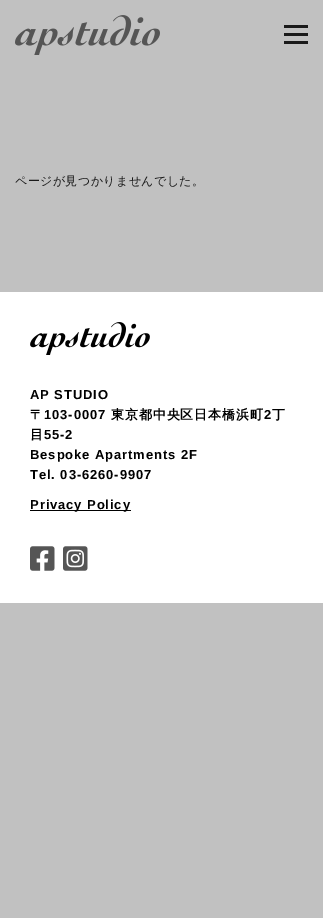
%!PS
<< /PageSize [323 918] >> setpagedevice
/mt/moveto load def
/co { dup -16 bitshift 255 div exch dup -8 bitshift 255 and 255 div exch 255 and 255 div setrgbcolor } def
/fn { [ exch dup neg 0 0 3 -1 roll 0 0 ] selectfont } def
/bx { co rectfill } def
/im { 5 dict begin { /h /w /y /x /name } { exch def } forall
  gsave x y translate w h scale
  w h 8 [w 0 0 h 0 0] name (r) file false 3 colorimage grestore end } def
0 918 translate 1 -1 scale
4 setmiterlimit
0 0 323 918 16#C1C1C1 bx
(media/1.raw) 15 15 145 40 im
284 25 24 3 16#1A1A1A bx
284 33 24 3 16#1A1A1A bx
284 41 24 3 16#1A1A1A bx
0 292 323 311 16#FFFFFF bx
(media/2.raw) 30 322 120 33 im
30 510 101 1 16#000000 bx
(media/3.raw) 30 546 25 25 im
(media/4.raw) 63 546 25 25 im
/WenQuanYiZenHei-Medium 12 fn
16#1A1A1A co
15 185 mt .4 0 (ページが見つかりませんでした。) ashow
/LiberationSans-Bold 13 fn
16#000000 co
30 399 mt .9 0 (AP STUDIO) ashow
/WenQuanYiZenHei-Bold 13 fn
30 419 mt .9 0 (〒) ashow
/LiberationSans-Bold 13 fn
44 419 mt .9 0 (103-0007) ashow
/WenQuanYiZenHei-Bold 13 fn
111 419 mt .9 0 (東京都中央区日本橋浜町) ashow
/LiberationSans-Bold 13 fn
264 419 mt .9 0 (2) ashow
/WenQuanYiZenHei-Bold 13 fn
272 419 mt .9 0 (丁) ashow
30 439 mt .9 0 (目) ashow
/LiberationSans-Bold 13 fn
44 439 mt .9 0 (55-2) ashow
30 459 mt .9 0 (Bespoke Apartments 2F) ashow
30 479 mt .9 0 (Tel. 03-6260-9907) ashow
30 509 mt .9 0 (Privacy Policy) ashow
showpage
